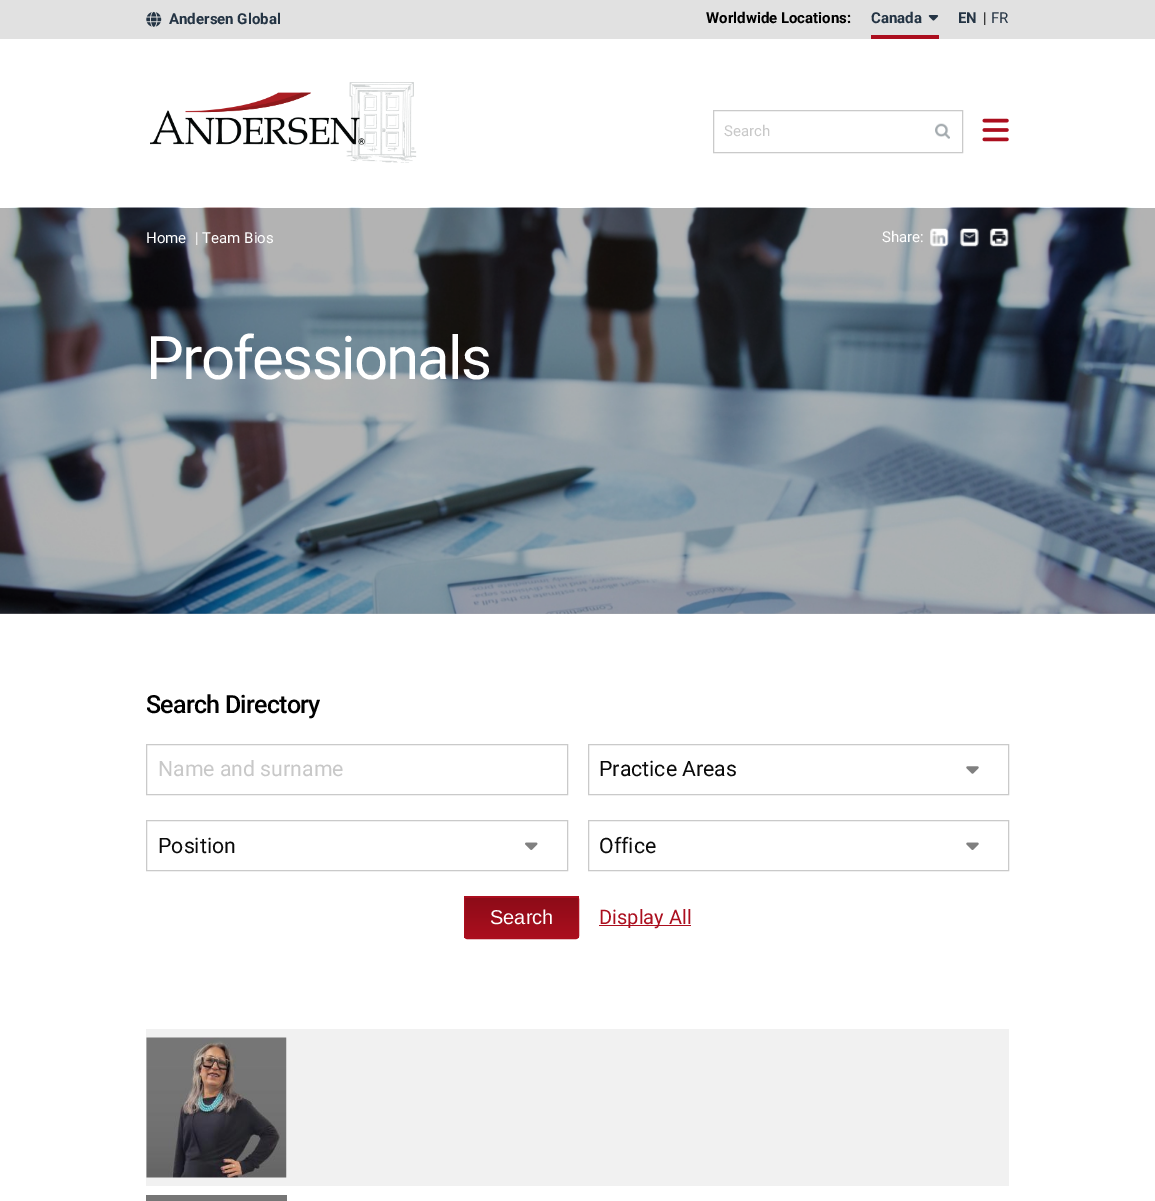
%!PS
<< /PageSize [1155 1201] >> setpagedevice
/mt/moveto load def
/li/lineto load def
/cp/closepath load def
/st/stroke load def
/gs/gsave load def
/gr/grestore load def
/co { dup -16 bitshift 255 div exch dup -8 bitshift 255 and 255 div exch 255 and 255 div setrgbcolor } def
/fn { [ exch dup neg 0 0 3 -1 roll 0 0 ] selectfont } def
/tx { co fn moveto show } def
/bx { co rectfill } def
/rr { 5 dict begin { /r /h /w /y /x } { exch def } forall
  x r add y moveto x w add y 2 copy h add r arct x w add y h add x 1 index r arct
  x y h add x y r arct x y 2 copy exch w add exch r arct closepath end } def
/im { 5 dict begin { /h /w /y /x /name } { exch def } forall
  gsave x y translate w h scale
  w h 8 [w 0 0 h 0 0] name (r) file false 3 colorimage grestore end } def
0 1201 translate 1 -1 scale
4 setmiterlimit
0 0 1155 1201 16#FFFFFF bx
0 0 1155 39 16#E1E1E1 bx
(media/1.raw) 146 11 16 16 im
871 35 68 4 16#AB0E1E bx
(media/2.raw) 928 15 11 6 im
(media/3.raw) 150 82 267 81 im
(media/4.raw) 935 123 15 16 im
16#CACACA co
713.5 110.5 249 42 rectstroke
(media/5.raw) 982 118 27 24 im
(media/6.raw) 0 207 1155 407 im
(media/7.raw) 930 228 19 19 im
(media/8.raw) 959 228 20 19 im
(media/9.raw) 989 228 20 19 im
146.5 744.5 421 50 rectstroke
588.5 744.5 420 50 rectstroke
(media/10.raw) 966 766 13 8 im
146.5 820.5 421 50 rectstroke
(media/11.raw) 525 842 13 8 im
588.5 820.5 420 50 rectstroke
(media/12.raw) 966 842 13 8 im
gs
464 896 115 43 3 rr clip newpath
gs 464 896 mt 579 896 li 579 898 li 464 898 li cp clip newpath
<< /ShadingType 2 /ColorSpace /DeviceRGB /Coords [521 858 521 898] /Extend [true true] /Function << /FunctionType 2 /Domain [0 1] /C0 [.553 .047 .094] /C1 [.671 .055 .118] /N 1 >> >> shfill gr
gs 464 898 mt 579 898 li 579 938 li 464 938 li cp clip newpath
<< /ShadingType 2 /ColorSpace /DeviceRGB /Coords [521 898 521 938] /Extend [true true] /Function << /FunctionType 2 /Domain [0 1] /C0 [.553 .047 .094] /C1 [.671 .055 .118] /N 1 >> >> shfill gr
gr
16#AB0E1E co
464.5 896.5 114 42 2.5 rr st
599 925 92 1 16#AB0E1E bx
146 1029 863 157 16#F1F1F1 bx
(media/13.raw) 146 1037 141 141 im
146 1195 141 6 16#767676 bx
(Andersen Global) 169 24 /Roboto-Bold 15 16#243444 tx
(Worldwide Locations:) 706 23 /Roboto-Bold 15 16#000000 tx
(Canada) 871 23 /Roboto-Bold 15 16#243444 tx
(EN) 958 23 /Roboto-Bold 15 16#243444 tx
(|) 983 23 /Roboto-Regular 15 16#000000 tx
(FR) 991 23 /Roboto-Regular 15 16#243444 tx
(Search) 724 136 /Roboto-Regular 15 16#C8C8C8 tx
(Home) 146 243 /Roboto-Regular 15 16#FFFFFF tx
(| Team Bios) 195 243 /Roboto-Regular 15 16#FFFFFF tx
(Share:) 882 242 /Roboto-Regular 15 16#FFFFFF tx
/Roboto-Regular 60 fn
146 379 mt -1.75 0 (Professionals) ashow
/Roboto-Medium 25 fn
16#000000 co
146 713 mt -.75 0 (Search Directory) ashow
(Name and surname) 158 776 /Roboto-Regular 21.25 16#C8C8C8 tx
(Practice Areas) 599 776 /Roboto-Regular 21.25 16#0A0A0A tx
(Position) 158 853 /Roboto-Regular 21.25 16#0A0A0A tx
(Office) 599 853 /Roboto-Regular 21.25 16#0A0A0A tx
(Search) 490 924 /LiberationSans-Regular 20 16#FFFFFF tx
(Display All) 599 924 /Roboto-Regular 20 16#AB0E1E tx
showpage
